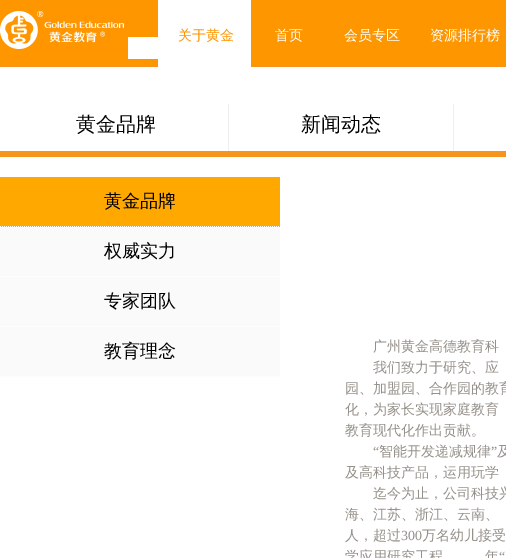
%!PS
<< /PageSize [506 558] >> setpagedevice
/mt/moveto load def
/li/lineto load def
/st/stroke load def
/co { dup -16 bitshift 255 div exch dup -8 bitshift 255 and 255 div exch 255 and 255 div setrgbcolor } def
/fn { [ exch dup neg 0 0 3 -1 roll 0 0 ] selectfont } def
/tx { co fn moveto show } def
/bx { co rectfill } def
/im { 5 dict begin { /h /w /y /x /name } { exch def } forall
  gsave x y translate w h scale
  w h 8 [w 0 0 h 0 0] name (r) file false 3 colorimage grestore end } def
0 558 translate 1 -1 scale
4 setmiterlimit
0 0 506 558 16#FFFFFF bx
0 0 506 65 16#FE9600 bx
0 65 506 2 16#F7941D bx
(media/1.raw) 0 11 128 48 im
128 37 30 22 16#FFFFFF bx
158 0 93 67 16#FFFFFF bx
228 104 1 47 16#EEEEEE bx
453 104 1 47 16#EEEEEE bx
0 151 506 6 16#F7941D bx
0 227 280 150 16#FAFAFA bx
0 177 280 50 16#FFA800 bx
16#FFFFFF co
[1 1] 0 setdash
0 226.5 mt 280 226.5 li st
0 276.5 mt 280 276.5 li st
0 326.5 mt 280 326.5 li st
0 376.5 mt 280 376.5 li st
(关于黄金) 178 40 /WenQuanYiZenHei-Medium 14 16#FE9600 tx
(首页) 275 40 /WenQuanYiZenHei-Medium 14 16#FFFFFF tx
(会员专区) 344 40 /WenQuanYiZenHei-Medium 14 16#FFFFFF tx
(资源排行榜) 430 40 /WenQuanYiZenHei-Medium 14 16#FFFFFF tx
(黄金品牌) 76 131 /WenQuanYiZenHei-Medium 20 16#000000 tx
(新闻动态) 301 131 /WenQuanYiZenHei-Medium 20 16#000000 tx
(黄金品牌) 104 207 /WenQuanYiZenHei-Medium 18 16#000000 tx
(权威实力) 104 257 /WenQuanYiZenHei-Medium 18 16#000000 tx
(专家团队) 104 307 /WenQuanYiZenHei-Medium 18 16#000000 tx
(教育理念) 104 357 /WenQuanYiZenHei-Medium 18 16#000000 tx
(广州黄金高德教育科) 373 351 /WenQuanYiZenHei-Medium 14 16#95908A tx
(我们致力于研究、应) 373 372 /WenQuanYiZenHei-Medium 14 16#95908A tx
(园、加盟园、合作园的教育) 345 393 /WenQuanYiZenHei-Medium 14 16#95908A tx
(化，为家长实现家庭教育) 345 414 /WenQuanYiZenHei-Medium 14 16#95908A tx
(教育现代化作出贡献。) 345 435 /WenQuanYiZenHei-Medium 14 16#95908A tx
(“) 373 456 /LiberationSerif-Regular 14 16#95908A tx
(智能开发递减规律) 379 456 /WenQuanYiZenHei-Medium 14 16#95908A tx
(”) 491 456 /LiberationSerif-Regular 14 16#95908A tx
(及) 497 456 /WenQuanYiZenHei-Medium 14 16#95908A tx
(及高科技产品，运用玩学) 345 477 /WenQuanYiZenHei-Medium 14 16#95908A tx
(迄今为止，公司科技兴) 373 498 /WenQuanYiZenHei-Medium 14 16#95908A tx
(海、江苏、浙江、云南、) 345 519 /WenQuanYiZenHei-Medium 14 16#95908A tx
(人，超过) 345 540 /WenQuanYiZenHei-Medium 14 16#95908A tx
(300) 401 540 /LiberationSerif-Regular 14 16#95908A tx
(万名幼儿接受) 422 540 /WenQuanYiZenHei-Medium 14 16#95908A tx
(学应用研究工程) 345 561 /WenQuanYiZenHei-Medium 14 16#95908A tx
(年) 485 561 /WenQuanYiZenHei-Medium 14 16#95908A tx
(“) 499 561 /LiberationSerif-Regular 14 16#95908A tx
showpage
